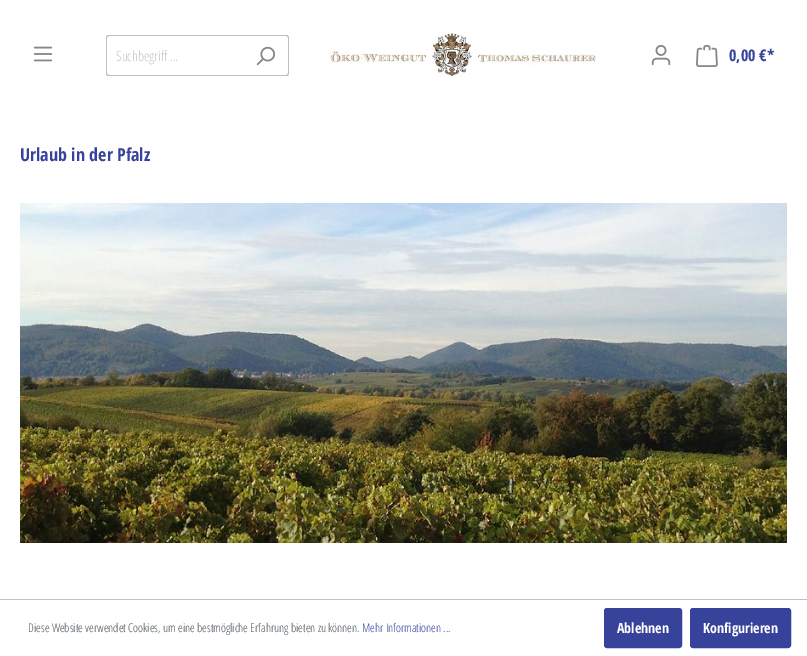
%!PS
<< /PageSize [807 656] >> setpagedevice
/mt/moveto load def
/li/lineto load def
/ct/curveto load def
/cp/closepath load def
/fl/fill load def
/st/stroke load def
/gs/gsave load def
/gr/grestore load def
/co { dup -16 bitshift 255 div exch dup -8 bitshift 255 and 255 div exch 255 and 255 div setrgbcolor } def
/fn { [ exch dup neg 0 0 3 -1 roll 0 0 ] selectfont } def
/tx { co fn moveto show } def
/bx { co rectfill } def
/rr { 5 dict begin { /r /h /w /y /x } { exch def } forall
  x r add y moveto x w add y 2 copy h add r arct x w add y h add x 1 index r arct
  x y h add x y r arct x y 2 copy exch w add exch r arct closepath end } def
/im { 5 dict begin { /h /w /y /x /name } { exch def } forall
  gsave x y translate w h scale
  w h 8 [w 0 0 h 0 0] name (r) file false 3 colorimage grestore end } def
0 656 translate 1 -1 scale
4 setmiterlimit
0 0 807 656 16#FFFFFF bx
(media/1.raw) 33 46 20 16 im
16#BCC1C7 co
109 35 mt 243 35 li 243 76 li 109 76 li 107 76 106 75 106 73 ct 106 38 li 106 36 107 35 109 35 ct cp 109 36 mt 243 36 li 243 75 li 109 75 li 108 75 107 74 107 73 ct 107 38 li 107 37 108 36 109 36 ct cp eofill
16#FFFFFF co
242 35 mt 286 35 li 287.5 35 289 36.5 289 38 ct 289 73 li 289 74.5 287.5 76 286 76 ct 242 76 li cp fl
16#BCC1C7 co
242 35 mt 286 35 li 288 35 289 36 289 38 ct 289 73 li 289 75 288 76 286 76 ct 242 76 li cp 242 36 mt 286 36 li 287 36 288 37 288 38 ct 288 73 li 288 74 287 75 286 75 ct 242 75 li cp eofill
(media/2.raw) 256 46 20 20 im
(media/3.raw) 330 33 266 45 im
(media/4.raw) 651 44 20 22 im
(media/5.raw) 696 45 22 22 im
(media/6.raw) 20 203 767 340 im
0 599 807 1 16#BCC1C7 bx
16#37429B co
604.5 608.5 77 39 2.5 rr gs fl gr
st
690.5 608.5 100 39 2.5 rr gs fl gr
st
(Suchbegriff ...) 116 61 /OpenSans-Light 14 16#C3C3C3 tx
(0,00 €*) 729 61 /OpenSansCondensed-Bold 16 16#37429B tx
(Urlaub in der Pfalz) 20 161 /OpenSansCondensed-Bold 18 16#37429B tx
(Diese Website verwendet Cookies, um eine bestmögliche Erfahrung bieten zu können.) 28 632 /OpenSans-Light 12 16#4A545B tx
(Mehr Informationen ...) 362 632 /OpenSans-Light 12 16#37429B tx
(Ablehnen) 617 633 /OpenSansCondensed-Bold 14 16#FFFFFF tx
(Konfigurieren) 703 633 /OpenSansCondensed-Bold 14 16#FFFFFF tx
showpage
